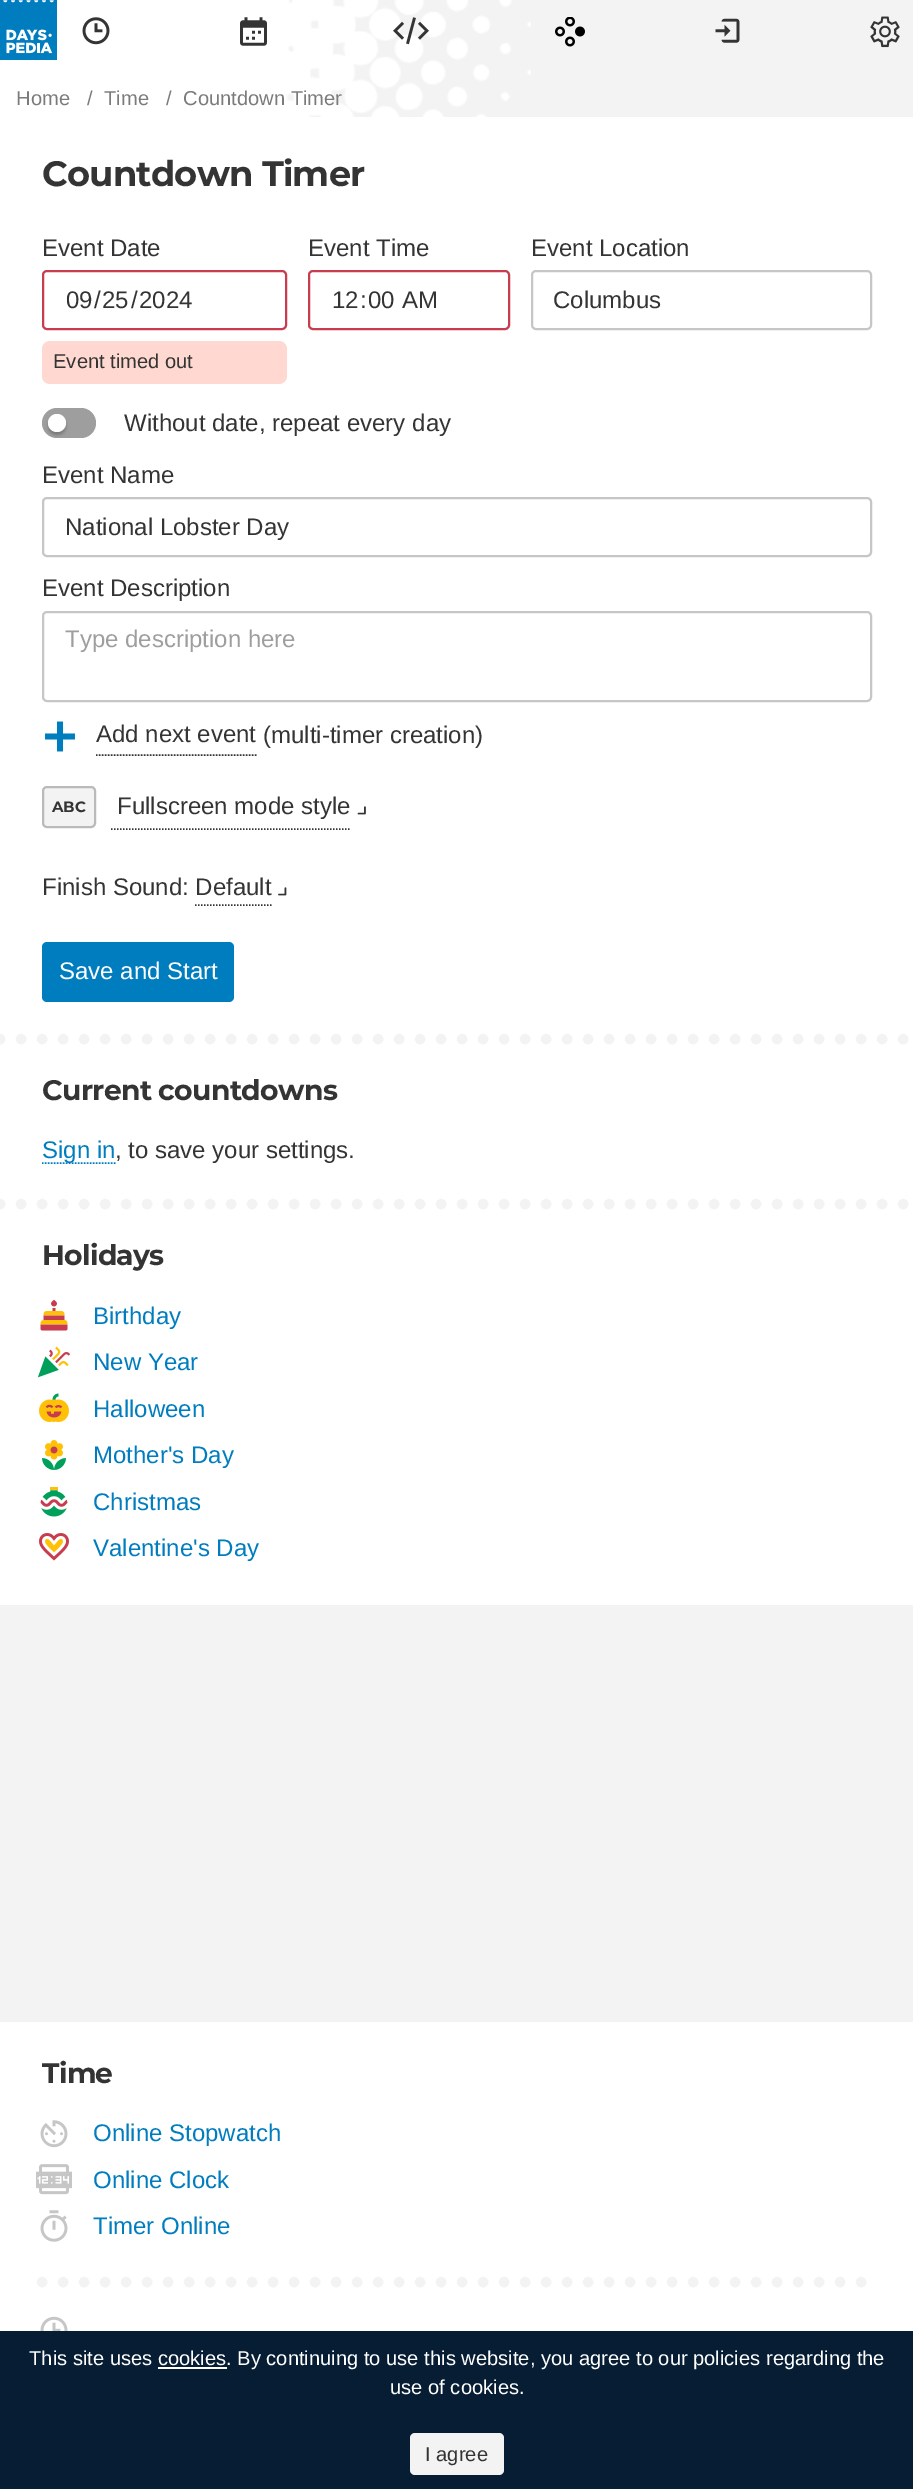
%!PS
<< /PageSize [913 2489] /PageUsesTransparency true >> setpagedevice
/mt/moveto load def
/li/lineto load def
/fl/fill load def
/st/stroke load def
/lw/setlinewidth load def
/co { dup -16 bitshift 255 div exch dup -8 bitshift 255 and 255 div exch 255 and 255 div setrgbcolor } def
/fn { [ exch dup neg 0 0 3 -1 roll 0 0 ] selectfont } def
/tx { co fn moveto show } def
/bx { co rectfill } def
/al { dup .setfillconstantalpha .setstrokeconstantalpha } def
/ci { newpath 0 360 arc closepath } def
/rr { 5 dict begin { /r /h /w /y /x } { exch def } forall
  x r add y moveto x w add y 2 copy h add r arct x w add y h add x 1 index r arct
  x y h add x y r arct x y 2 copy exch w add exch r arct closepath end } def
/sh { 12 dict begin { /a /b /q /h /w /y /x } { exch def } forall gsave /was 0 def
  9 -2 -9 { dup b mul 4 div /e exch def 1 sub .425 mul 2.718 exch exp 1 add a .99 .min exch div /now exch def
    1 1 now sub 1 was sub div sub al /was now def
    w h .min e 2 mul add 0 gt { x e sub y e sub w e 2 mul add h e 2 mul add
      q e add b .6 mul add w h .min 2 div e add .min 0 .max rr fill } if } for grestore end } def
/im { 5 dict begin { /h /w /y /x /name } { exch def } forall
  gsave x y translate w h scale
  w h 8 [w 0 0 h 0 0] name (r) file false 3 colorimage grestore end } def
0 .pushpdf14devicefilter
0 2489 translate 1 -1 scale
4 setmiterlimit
0 0 913 2489 16#F3F3F3 bx
(media/9.raw) 21 0 510 117 im
0 0 57 60 16#007DBF bx
(media/1.raw) 3 0 51 54 im
(media/2.raw) 82 17 28 28 im
(media/3.raw) 240 17 27 29 im
(media/4.raw) 393 17 36 28 im
(media/5.raw) 555 17 30 30 im
(media/6.raw) 715 18 25 25 im
(media/7.raw) 870 16 30 32 im
(media/8.raw) 0 60 21 57 im
0 117 913 1488 16#FFFFFF bx
16#C73C4E co
2 lw
43 271 243 58 4 rr st
16#FFD9D1 co
42 341 245 43 8 rr fl
16#C73C4E co
309 271 200 58 4 rr st
16#C6C6C6 co
532 271 339 58 4 rr st
16#9E9E9E co
42 408 54 30 15 rr fl
16#010407 co
48 417 18 18 9 1.5 .24 sh
16#FFFFFF co
57 423 9 ci fl
16#C6C6C6 co
43 498 828 58 4 rr st
43 612 828 89 4 rr st
16#343434 co
1.5 lw
[1.5 1.5] 0 setdash
96 755 mt 256.5 755 li st
(media/10.raw) 45 721 30 31 im
111 829 mt 351 829 li st
16#F3F3F3 co
42 786 54 42 5 rr fl
0.24 al
16#010407 co
2 lw
[] 0 setdash
43 787 52 40 4 rr st
1 al
(media/11.raw) 357 806 9 9 im
(media/12.raw) 278 887 9 9 im
16#343434 co
1.5 lw
[1.5 1.5] 0 setdash
195 905 mt 271.5 905 li st
16#007DBF co
42 942 192 60 5 rr fl
16#F3F3F3 co
10.5 lw
1 setlinecap
[0 21] 0 setdash
0 1039 mt 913.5 1039 li st
16#007DBF co
1.5 lw
0 setlinecap
[1.5 1.5] 0 setdash
42 1163 mt 115.5 1163 li st
16#F3F3F3 co
10.5 lw
1 setlinecap
[0 21] 0 setdash
0 1204 mt 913.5 1204 li st
(media/13.raw) 40 1299 28 32 im
(media/14.raw) 37 1346 34 32 im
(media/15.raw) 39 1393 30 29 im
(media/16.raw) 42 1440 24 30 im
(media/17.raw) 40 1487 28 30 im
(media/18.raw) 39 1533 30 28 im
0 2022 913 309 16#FFFFFF bx
(media/19.raw) 40 2120 28 28 im
(media/20.raw) 36 2164 36 31 im
(media/21.raw) 40 2210 28 32 im
16#F3F3F3 co
42 2282 mt 871.5 2282 li st
(media/22.raw) 40 2316 28 15 im
0 2331 913 158 16#071D33 bx
158 2367 69 2 16#FFFFFF bx
16#F3F3F3 co
410 2433 94 42 5 rr fl
(Home) 16 105 /LiberationSans-Regular 20.15 16#7B7B7B tx
(/) 87 105 /LiberationSans-Regular 20.15 16#7B7B7B tx
(Time) 104 105 /LiberationSans-Regular 20.15 16#7B7B7B tx
(/) 166 105 /LiberationSans-Regular 20.15 16#7B7B7B tx
(Countdown Timer) 183 105 /LiberationSans-Regular 20.15 16#7B7B7B tx
/Montserrat-Bold 35.25 fn
16#343434 co
42 186 mt -.8 0 (Countdown Timer) ashow
(Event Date) 42 256 /LiberationSans-Regular 24 16#343434 tx
(09) 66 308 /LiberationSans-Regular 24 16#343434 tx
(/) 94 308 /LiberationSans-Regular 24 16#343434 tx
(25) 102 308 /LiberationSans-Regular 24 16#343434 tx
(/) 131 308 /LiberationSans-Regular 24 16#343434 tx
(2024) 139 308 /LiberationSans-Regular 24 16#343434 tx
(Event timed out) 53 368 /LiberationSans-Regular 20.15 16#343434 tx
(Event Time) 308 256 /LiberationSans-Regular 24 16#343434 tx
(12) 332 308 /LiberationSans-Regular 24 16#343434 tx
(:) 360 308 /LiberationSans-Regular 24 16#343434 tx
(00) 368 308 /LiberationSans-Regular 24 16#343434 tx
(AM) 402 308 /LiberationSans-Regular 24 16#343434 tx
(Event Location) 531 256 /LiberationSans-Regular 24 16#343434 tx
(Columbus) 553 308 /LiberationSans-Regular 24 16#343434 tx
(Without date, repeat every day) 124 431 /LiberationSans-Regular 24 16#343434 tx
(Event Name) 42 483 /LiberationSans-Regular 24 16#343434 tx
(National Lobster Day) 65 535 /LiberationSans-Regular 24 16#343434 tx
(Event Description) 42 596 /LiberationSans-Regular 24 16#343434 tx
(Type description here) 65 647 /LiberationSans-Regular 24 16#9E9E9E tx
(Add next event) 96 742 /LiberationSans-Regular 24 16#343434 tx
(\(multi-timer creation\)) 263 743 /LiberationSans-Regular 24 16#343434 tx
(ABC) 52 812 /Montserrat-Bold 15 16#343434 tx
(Fullscreen mode style) 117 814 /LiberationSans-Regular 24 16#343434 tx
(Finish Sound: Default) 42 895 /LiberationSans-Regular 24 16#343434 tx
(Save and Start) 59 979 /LiberationSans-Regular 24 16#FFFFFF tx
/Montserrat-Bold 28.25 fn
16#343434 co
42 1100 mt -.7 0 (Current countdowns) ashow
(Sign in) 42 1158 /LiberationSans-Regular 24 16#007DBF tx
(, to save your settings.) 115 1158 /LiberationSans-Regular 24 16#343434 tx
/Montserrat-Bold 28.25 fn
42 1265 mt -.7 0 (Holidays) ashow
(Birthday) 93 1324 /LiberationSans-Regular 24 16#007DBF tx
(New Year) 93 1370 /LiberationSans-Regular 24 16#007DBF tx
(Halloween) 93 1417 /LiberationSans-Regular 24 16#007DBF tx
(Mother's Day) 93 1463 /LiberationSans-Regular 24 16#007DBF tx
(Christmas) 93 1510 /LiberationSans-Regular 24 16#007DBF tx
(Valentine's Day) 93 1556 /LiberationSans-Regular 24 16#007DBF tx
/Montserrat-Bold 28.25 fn
16#343434 co
42 2083 mt -.7 0 (Time) ashow
(Online Stopwatch) 93 2141 /LiberationSans-Regular 24 16#007DBF tx
(Online Clock) 93 2188 /LiberationSans-Regular 24 16#007DBF tx
(Timer Online) 93 2234 /LiberationSans-Regular 24 16#007DBF tx
(This site uses cookies. By continuing to use this website, you agree to our policies regarding the) 29 2365 /LiberationSans-Regular 20.15 16#FFFFFF tx
(use of cookies.) 390 2394 /LiberationSans-Regular 20.15 16#FFFFFF tx
(I agree) 425 2461 /LiberationSans-Regular 20.15 16#343434 tx
.poppdf14devicefilter showpage
